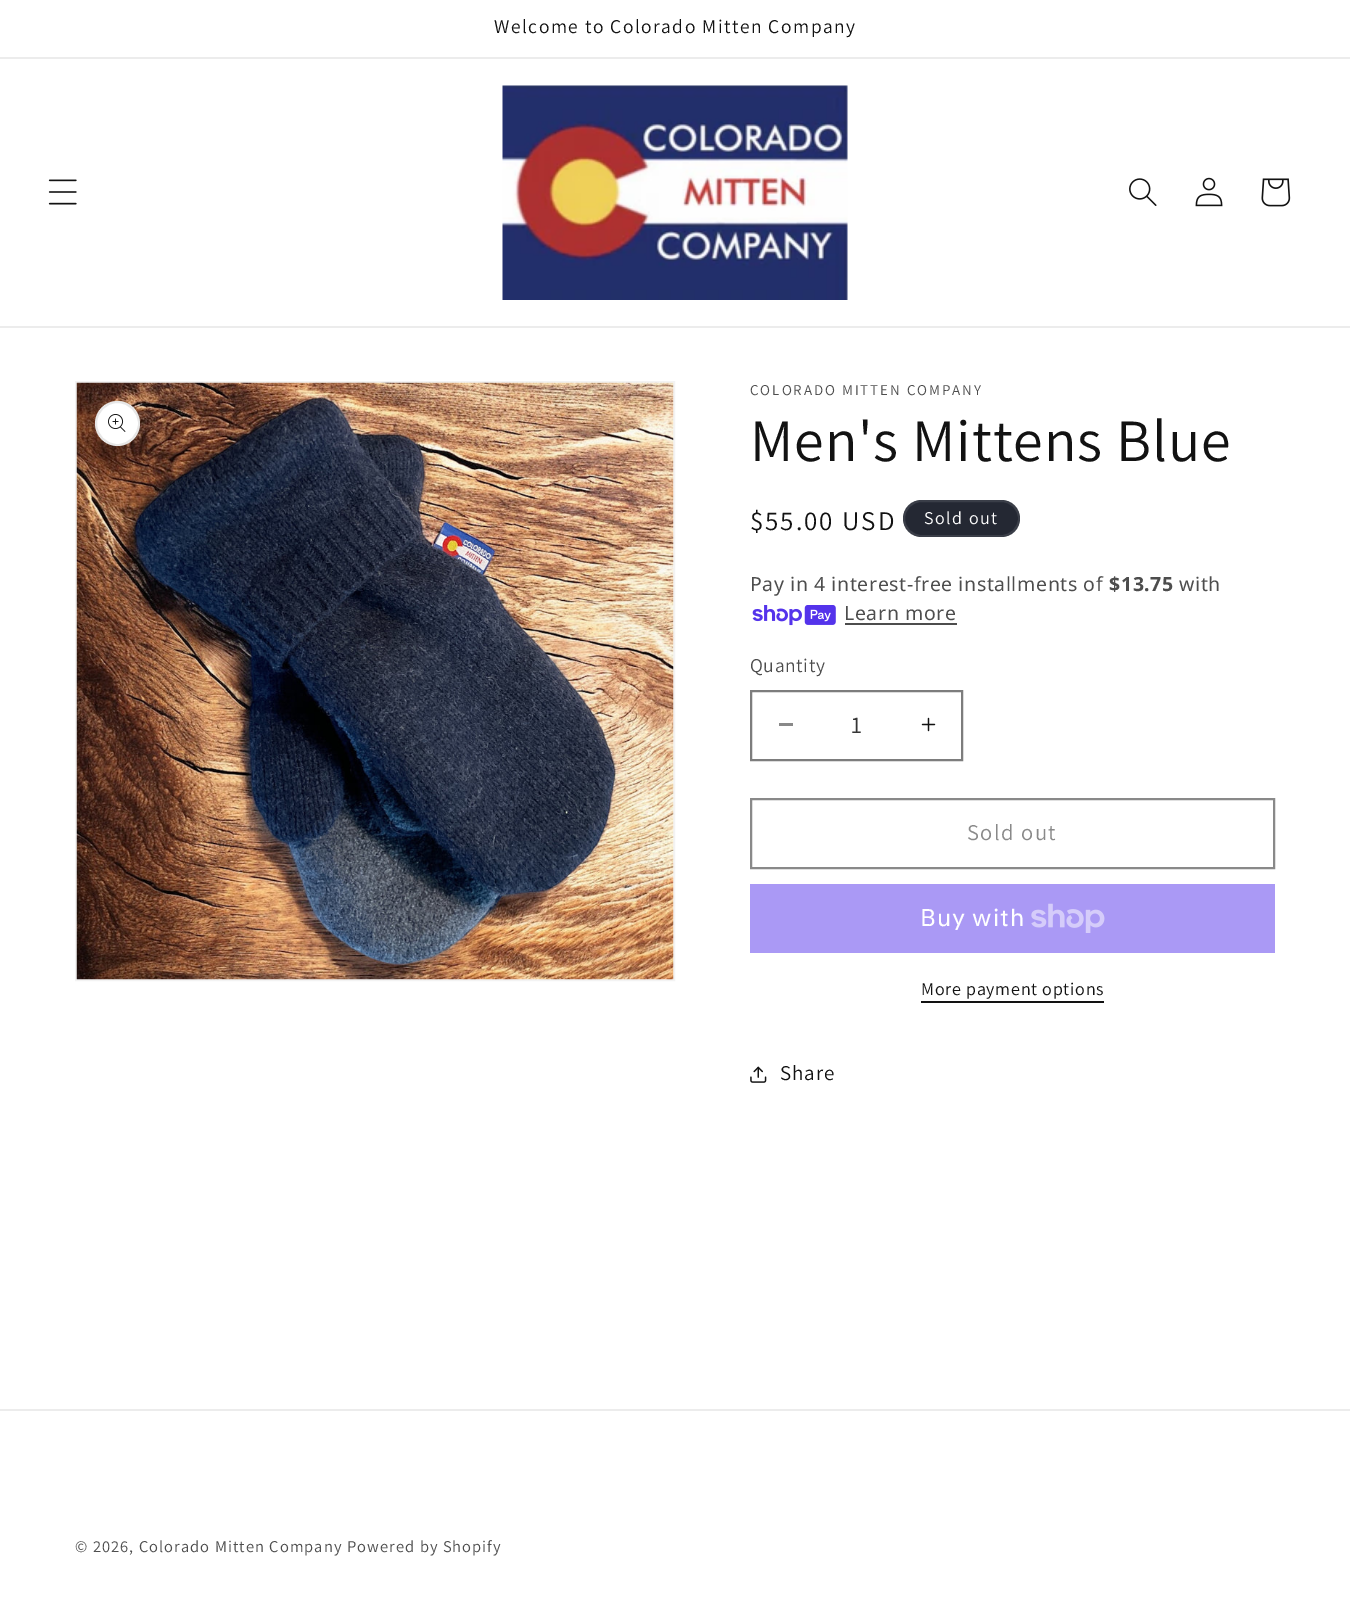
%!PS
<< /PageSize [1350 1615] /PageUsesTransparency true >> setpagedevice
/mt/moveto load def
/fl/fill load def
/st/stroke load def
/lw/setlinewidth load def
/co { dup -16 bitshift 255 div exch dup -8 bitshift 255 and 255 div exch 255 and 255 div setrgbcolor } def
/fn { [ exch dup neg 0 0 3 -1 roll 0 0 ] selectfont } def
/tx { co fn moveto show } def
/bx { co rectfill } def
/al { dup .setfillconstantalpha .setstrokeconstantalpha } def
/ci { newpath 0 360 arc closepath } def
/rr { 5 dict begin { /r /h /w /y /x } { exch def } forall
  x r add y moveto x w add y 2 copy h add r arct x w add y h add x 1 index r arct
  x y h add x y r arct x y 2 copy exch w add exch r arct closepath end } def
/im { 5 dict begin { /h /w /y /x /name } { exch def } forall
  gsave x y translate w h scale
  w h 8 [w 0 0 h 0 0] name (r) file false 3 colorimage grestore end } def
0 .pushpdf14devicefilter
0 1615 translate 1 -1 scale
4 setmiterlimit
0 0 1350 1615 16#FFFFFF bx
0 57 1350 2 16#ECECEC bx
0 326 1350 2 16#ECECEC bx
(media/1.raw) 48 179 29 26 im
(media/2.raw) 502 85 346 215 im
(media/3.raw) 1129 178 28 28 im
(media/4.raw) 1195 177 28 30 im
(media/5.raw) 1261 178 30 29 im
16#F3F3F3 co
2 lw
76 382 598 598 rectstroke
(media/6.raw) 76 382 598 598 im
16#FFFFFF co
117.5 423.5 22.5 ci fl
0.1 al
16#121212 co
117.5 423.5 21.5 ci st
1 al
(media/7.raw) 108 414 18 18 im
16#242833 co
903 500 117 37 18.5 rr fl
0.1 al
16#FFFFFF co
904 501 115 35 17.5 rr st
1 al
(media/8.raw) 752 605 84 21 im
845 623 112 2 16#4D4D4D bx
779 723 14 3 16#898989 bx
(media/9.raw) 921 717 15 15 im
16#7D7D7D co
751 691 211 69 rectstroke
16#898989 co
751 799 523 69 rectstroke
750 884 525 69 16#AA99F5 bx
(media/10.raw) 1031 903 74 30 im
921 1001 183 2 16#121212 bx
(media/11.raw) 750 1066 17 17 im
0 1409 1350 2 16#ECECEC bx
/Assistant-Regular 19.5 fn
16#121212 co
494 33 mt 1.5 0 (Welcome to Colorado Mitten Company) ashow
/Assistant-Regular 15 fn
16#4D4D4D co
750 395 mt 1.95 0 (COLORADO MITTEN COMPANY) ashow
/Assistant-Regular 60 fn
16#121212 co
750 461 mt .9 0 (Men's Mittens Blue) ashow
/Assistant-Regular 27 fn
750 530 mt 1.95 0 ($55.00 USD) ashow
/Assistant-Regular 18 fn
16#FFFFFF co
924 524 mt 1.5 0 (Sold out) ashow
/NotoSans-Regular 19.5 fn
16#4D4D4D co
750 591 mt .6 0 (Pay in 4 interest-free installments of) ashow
/NotoSans-Bold 19.5 fn
1109 591 mt .6 0 ($13.75) ashow
/NotoSans-Regular 19.5 fn
1179 591 mt .6 0 (with) ashow
844 620 mt .6 0 (Learn more) ashow
/Assistant-Regular 19.5 fn
750 672 mt .6 0 (Quantity) ashow
(1) 851 733 /Assistant-Regular 24 16#363636 tx
/Assistant-Regular 22.5 fn
16#898989 co
967 840 mt 1.5 0 (Sold out) ashow
/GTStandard-Regular 24 fn
16#FFFFFF co
920 926 mt .9 0 (Buy with) ashow
/Assistant-Regular 18 fn
16#121212 co
921 995 mt .75 0 (More payment options) ashow
/Assistant-Regular 21 fn
780 1080 mt .9 0 (Share) ashow
/Assistant-Regular 16.5 fn
16#4D4D4D co
75 1552 mt 1.05 0 (© 2026, Colorado Mitten Company) ashow
347 1552 mt 1.05 0 (Powered by Shopify) ashow
.poppdf14devicefilter showpage
